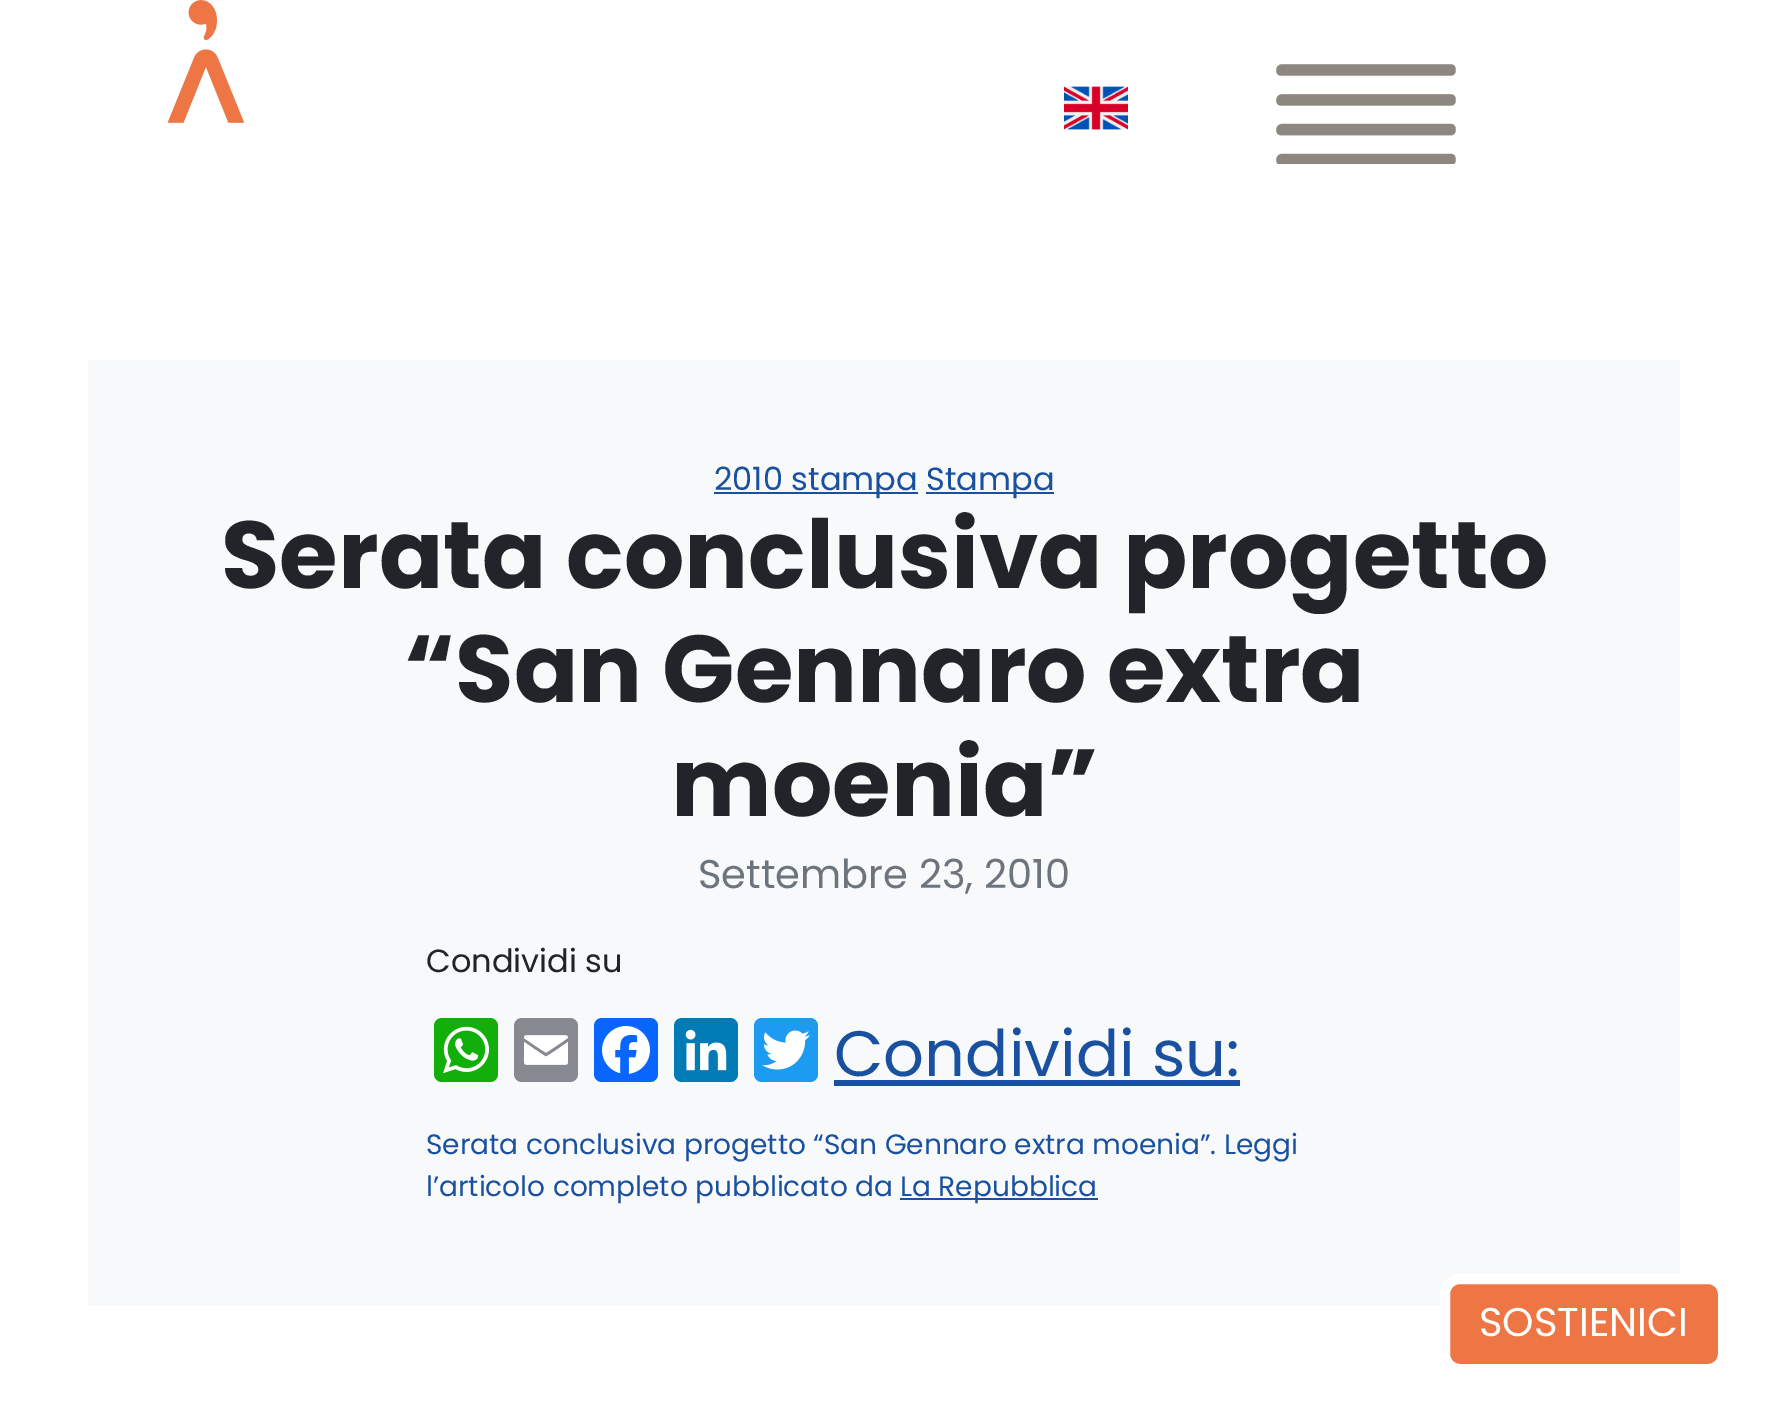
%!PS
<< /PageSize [1767 1413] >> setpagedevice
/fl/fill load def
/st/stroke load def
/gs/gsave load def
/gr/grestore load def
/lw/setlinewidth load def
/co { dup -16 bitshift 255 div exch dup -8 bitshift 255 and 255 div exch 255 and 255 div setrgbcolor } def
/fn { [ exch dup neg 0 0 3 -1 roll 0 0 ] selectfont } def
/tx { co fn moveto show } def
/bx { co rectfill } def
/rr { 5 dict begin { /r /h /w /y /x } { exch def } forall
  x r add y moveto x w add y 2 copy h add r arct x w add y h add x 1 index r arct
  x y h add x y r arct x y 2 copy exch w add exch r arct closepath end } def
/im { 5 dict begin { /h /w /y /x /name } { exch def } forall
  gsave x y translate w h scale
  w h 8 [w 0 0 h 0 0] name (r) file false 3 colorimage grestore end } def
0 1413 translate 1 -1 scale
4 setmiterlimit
0 0 1767 1413 16#FFFFFF bx
(media/1.raw) 167 0 78 123 im
(media/2.raw) 1064 86 64 44 im
(media/3.raw) 1276 64 180 100 im
88 360 1592 946 16#F8F9FA bx
714 492 204 2 16#1951A0 bx
926 492 128 2 16#1951A0 bx
16#12AF0A co
434 1018 64 64 8 rr fl
(media/4.raw) 443 1026 46 48 im
16#888990 co
514 1018 64 64 8 rr fl
(media/5.raw) 524 1035 44 30 im
16#0866FF co
594 1018 64 64 8 rr fl
(media/6.raw) 602 1026 48 48 im
16#007BB5 co
674 1018 64 64 8 rr fl
(media/7.raw) 685 1029 42 42 im
16#1D9BF0 co
754 1018 64 64 8 rr fl
(media/8.raw) 762 1030 48 40 im
834 1080 406 6 16#1951A0 bx
900 1198 198 2 16#1951A0 bx
16#EE7544 co
1445 1279 278 90 15 rr gs fl gr
16#FFFFFF co
10 lw
st
(2010 stampa) 714 490 /Poppins-Regular 32 16#1951A0 tx
(Stampa) 926 490 /Poppins-Regular 32 16#1951A0 tx
(Serata conclusiva progetto) 221 588 /Poppins-Bold 95 16#212529 tx
(“San Gennaro extra) 404 702 /Poppins-Bold 95 16#212529 tx
(moenia”) 671 816 /Poppins-Bold 95 16#212529 tx
(Settembre 23, 2010) 698 888 /Poppins-Regular 40 16#6C757D tx
(Condividi su) 426 972 /Poppins-Regular 32 16#212529 tx
(Condividi su:) 834 1076 /Poppins-Regular 64 16#1951A0 tx
(Serata conclusiva progetto “San Gennaro extra moenia”. Leggi) 426 1154 /Poppins-Regular 28 16#1951A0 tx
(l’articolo completo pubblicato da) 426 1196 /Poppins-Regular 28 16#1951A0 tx
(La Repubblica) 900 1196 /Poppins-Regular 28 16#1951A0 tx
(SOSTIENICI) 1479 1336 /Poppins-Regular 40 16#FFFFFF tx
showpage
